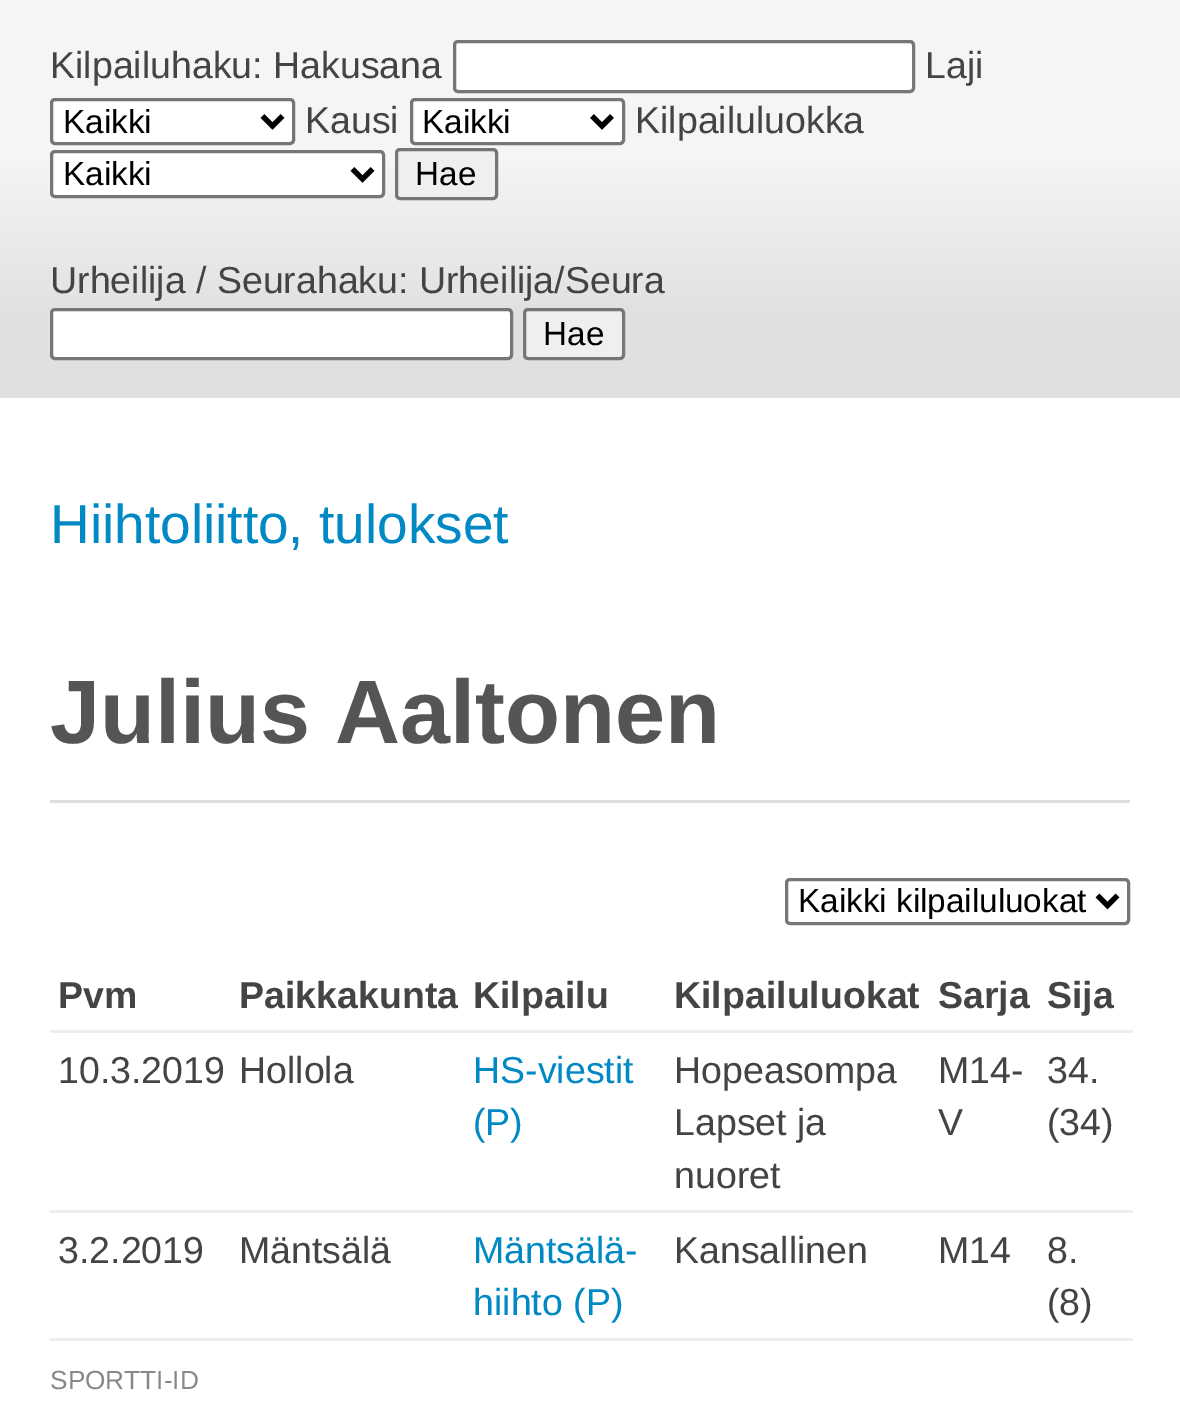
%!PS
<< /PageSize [1180 1409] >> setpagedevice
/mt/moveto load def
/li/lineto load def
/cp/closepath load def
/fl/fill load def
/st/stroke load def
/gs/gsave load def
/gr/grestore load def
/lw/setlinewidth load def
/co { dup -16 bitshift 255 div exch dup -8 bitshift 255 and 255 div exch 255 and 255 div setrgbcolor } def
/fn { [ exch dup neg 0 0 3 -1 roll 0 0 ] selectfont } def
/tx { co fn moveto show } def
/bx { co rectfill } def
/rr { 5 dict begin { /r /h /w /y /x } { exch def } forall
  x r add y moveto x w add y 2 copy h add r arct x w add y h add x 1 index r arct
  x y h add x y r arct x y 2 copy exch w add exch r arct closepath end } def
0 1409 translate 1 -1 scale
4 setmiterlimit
0 0 1180 1409 16#FFFFFF bx
gs 0 0 mt 1180 0 li 1180 398 li 0 398 li cp clip newpath
<< /ShadingType 2 /ColorSpace /DeviceRGB /Coords [0 398 0 0] /Extend [true true] /Function << /FunctionType 3 /Domain [0 1] /Functions [<< /FunctionType 2 /Domain [0 1] /C0 [.878 .878 .878] /C1 [.878 .878 .878] /N 1 >> << /FunctionType 2 /Domain [0 1] /C0 [.878 .878 .878] /C1 [.961 .961 .961] /N 1 >> << /FunctionType 2 /Domain [0 1] /C0 [.961 .961 .961] /C1 [.961 .961 .961] /N 1 >>] /Bounds [.2 .6] /Encode [0 1 0 1 0 1] >> >> shfill gr
454.5 41.5 459 50 3.5 rr gs fl gr
16#767676 co
3 lw
st
16#FFFFFF co
51.5 99.5 242 44 3.5 rr gs fl gr
16#767676 co
st
16#000000 co
5 lw
262.5 116 mt 272.5 126 li 282.5 116 li st
16#FFFFFF co
411.5 99.5 212 44 3.5 rr gs fl gr
16#767676 co
3 lw
st
16#000000 co
5 lw
592 116 mt 602 126 li 612 116 li st
16#FFFFFF co
51.5 151.5 332 45 3.5 rr gs fl gr
16#767676 co
3 lw
st
16#000000 co
5 lw
352.5 169 mt 362.5 179 li 372.5 169 li st
16#EFEFEF co
396.5 149.5 100 49 3.5 rr gs fl gr
16#767676 co
3 lw
st
16#FFFFFF co
51.5 309.5 460 49 3.5 rr gs fl gr
16#767676 co
st
16#EFEFEF co
524.5 309.5 99 49 3.5 rr gs fl gr
16#767676 co
st
50 800 1080 3 16#DDDDDD bx
16#767676 co
786.5 879.5 342 44 3.5 rr st
16#000000 co
5 lw
1097.5 895.5 mt 1107.5 905.5 li 1117.5 895.5 li st
50 1030 1083 3 16#EEEEEE bx
50 1210 1083 3 16#EEEEEE bx
50 1338 1083 3 16#EEEEEE bx
(Kilpailuhaku: Hakusana) 50 78 /LiberationSans-Regular 37.5 16#444444 tx
(Laji) 925 78 /LiberationSans-Regular 37.5 16#444444 tx
(Kaikki) 63 133 /LiberationSans-Regular 33.25 16#000000 tx
(Kausi) 305 133 /LiberationSans-Regular 37.5 16#444444 tx
(Kaikki) 422 133 /LiberationSans-Regular 33.25 16#000000 tx
(Kilpailuluokka) 635 133 /LiberationSans-Regular 37.5 16#444444 tx
(Kaikki) 63 185 /LiberationSans-Regular 33.25 16#000000 tx
(Hae) 415 185 /LiberationSans-Regular 33.25 16#000000 tx
(Urheilija / Seurahaku: Urheilija/Seura) 50 293 /LiberationSans-Regular 37.5 16#444444 tx
(Hae) 543 345 /LiberationSans-Regular 33.25 16#000000 tx
(Hiihtoliitto, tulokset) 50 543 /LiberationSans-Regular 55 16#0089C4 tx
(Julius Aaltonen) 50 743 /LiberationSans-Bold 90 16#555555 tx
(Kaikki kilpailuluokat) 798 912 /LiberationSans-Regular 33.25 16#000000 tx
(Pvm) 58 1008 /LiberationSans-Bold 37.5 16#444444 tx
(Paikkakunta) 239 1008 /LiberationSans-Bold 37.5 16#444444 tx
(Kilpailu) 473 1008 /LiberationSans-Bold 37.5 16#444444 tx
(Kilpailuluokat) 674 1008 /LiberationSans-Bold 37.5 16#444444 tx
(Sarja) 938 1008 /LiberationSans-Bold 37.5 16#444444 tx
(Sija) 1047 1008 /LiberationSans-Bold 37.5 16#444444 tx
(10.3.2019) 58 1083 /LiberationSans-Regular 37.5 16#444444 tx
(Hollola) 239 1083 /LiberationSans-Regular 37.5 16#444444 tx
(HS-viestit) 473 1083 /LiberationSans-Regular 37.5 16#0089C4 tx
(\(P\)) 473 1135 /LiberationSans-Regular 37.5 16#0089C4 tx
(Hopeasompa) 674 1083 /LiberationSans-Regular 37.5 16#444444 tx
(Lapset ja) 674 1135 /LiberationSans-Regular 37.5 16#444444 tx
(nuoret) 674 1188 /LiberationSans-Regular 37.5 16#444444 tx
(M14-) 938 1083 /LiberationSans-Regular 37.5 16#444444 tx
(V) 938 1135 /LiberationSans-Regular 37.5 16#444444 tx
(34.) 1047 1083 /LiberationSans-Regular 37.5 16#444444 tx
(\(34\)) 1047 1135 /LiberationSans-Regular 37.5 16#444444 tx
(3.2.2019) 58 1263 /LiberationSans-Regular 37.5 16#444444 tx
(Mäntsälä) 239 1263 /LiberationSans-Regular 37.5 16#444444 tx
(Mäntsälä-) 473 1263 /LiberationSans-Regular 37.5 16#0089C4 tx
(hiihto \(P\)) 473 1315 /LiberationSans-Regular 37.5 16#0089C4 tx
(Kansallinen) 674 1263 /LiberationSans-Regular 37.5 16#444444 tx
(M14) 938 1263 /LiberationSans-Regular 37.5 16#444444 tx
(8.) 1047 1263 /LiberationSans-Regular 37.5 16#444444 tx
(\(8\)) 1047 1315 /LiberationSans-Regular 37.5 16#444444 tx
(SPORTTI-ID) 50 1389 /LiberationSans-Regular 26.25 16#888888 tx
showpage
